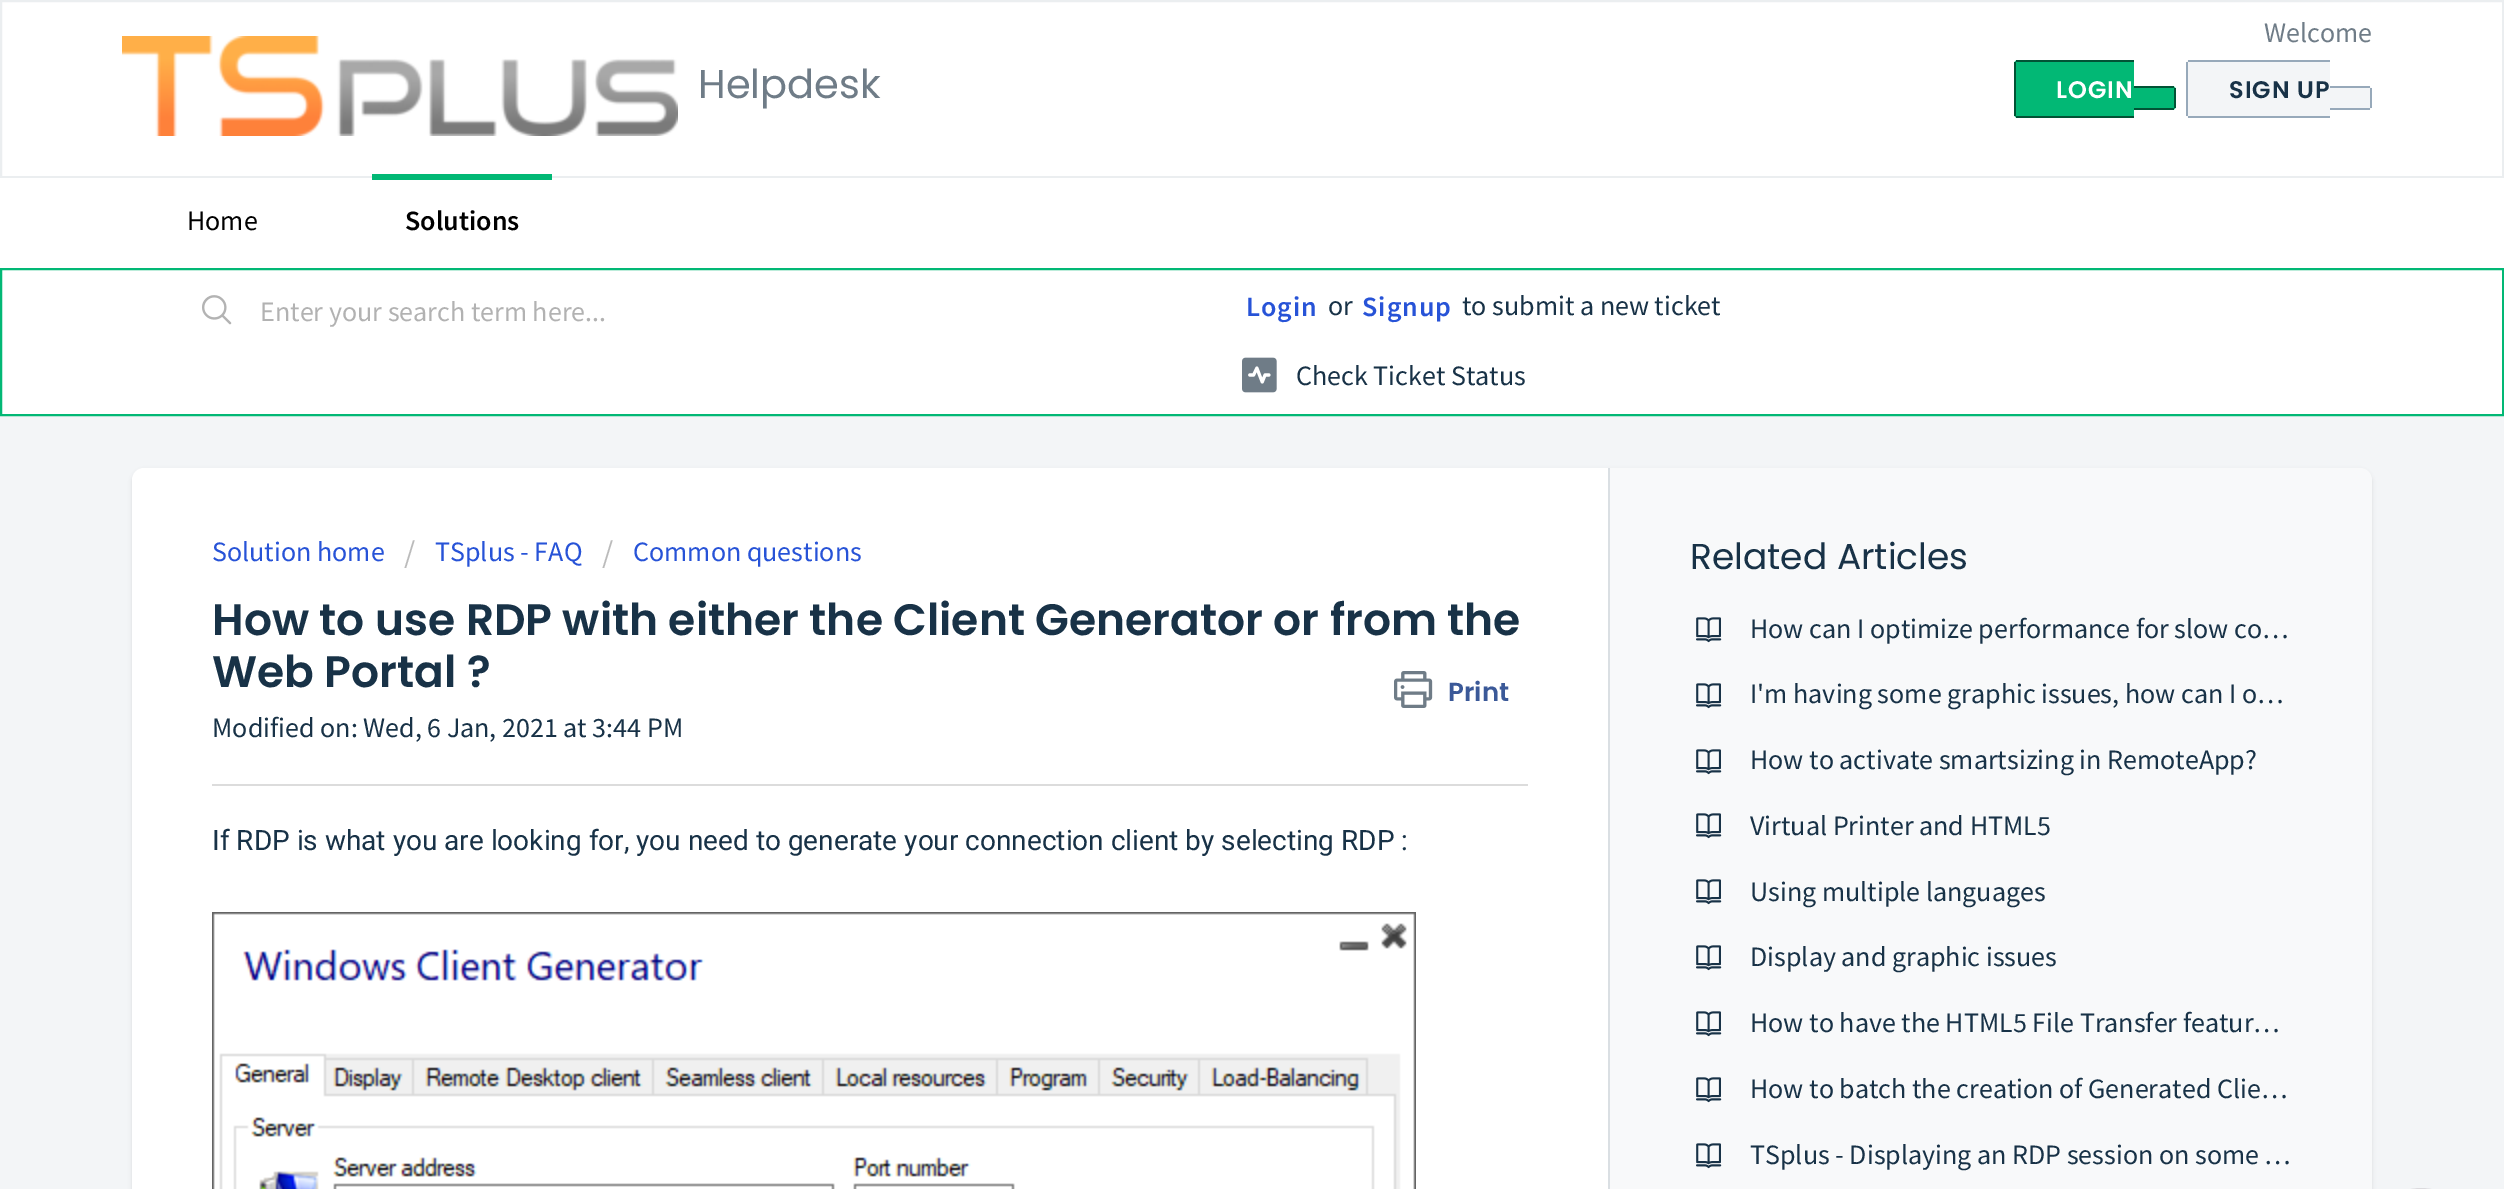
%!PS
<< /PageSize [2504 1189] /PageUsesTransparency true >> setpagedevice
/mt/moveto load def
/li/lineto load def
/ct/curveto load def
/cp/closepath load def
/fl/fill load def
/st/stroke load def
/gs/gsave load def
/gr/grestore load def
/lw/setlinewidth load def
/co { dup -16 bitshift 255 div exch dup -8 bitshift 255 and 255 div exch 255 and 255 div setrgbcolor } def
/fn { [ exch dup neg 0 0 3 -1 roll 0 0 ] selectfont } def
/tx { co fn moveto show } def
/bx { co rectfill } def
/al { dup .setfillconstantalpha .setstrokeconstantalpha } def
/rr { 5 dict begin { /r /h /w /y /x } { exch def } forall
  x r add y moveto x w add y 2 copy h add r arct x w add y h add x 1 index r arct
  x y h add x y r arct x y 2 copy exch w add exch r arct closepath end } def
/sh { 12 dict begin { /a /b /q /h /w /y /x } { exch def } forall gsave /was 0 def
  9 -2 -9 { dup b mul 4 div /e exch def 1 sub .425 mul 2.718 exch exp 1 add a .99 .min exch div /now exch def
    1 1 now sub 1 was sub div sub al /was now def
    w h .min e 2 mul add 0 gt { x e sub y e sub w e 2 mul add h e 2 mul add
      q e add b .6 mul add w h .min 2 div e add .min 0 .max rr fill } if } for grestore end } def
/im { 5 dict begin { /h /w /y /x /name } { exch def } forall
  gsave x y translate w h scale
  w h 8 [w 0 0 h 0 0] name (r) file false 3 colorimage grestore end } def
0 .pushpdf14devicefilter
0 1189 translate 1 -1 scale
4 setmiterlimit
0 0 2504 1189 16#F3F5F7 bx
16#FFFFFF co
1 1 mt 2503 1 li 2503 177 li 1 177 li cp gs fl gr
16#EBEEF0 co
2 lw
st
(media/1.raw) 122 36 556 100 im
16#02B875 co
2018 60 mt 2134 60 li 2134 118 li 2018 118 li 2016 118 2014 116 2014 114 ct 2014 64 li 2014 62 2016 60 2018 60 ct cp fl
2016 60 118 2 16#015335 bx
2016 116 118 2 16#015335 bx
2014 62 2 54 16#015335 bx
16#02B875 co
2134 86 mt 2172 86 li 2174 86 2176 88 2176 90 ct 2176 106 li 2176 108 2174 110 2172 110 ct 2134 110 li cp fl
2134 86 40 2 16#015335 bx
2174 88 2 20 16#015335 bx
2134 108 40 2 16#015335 bx
16#F3F5F7 co
2190 60 mt 2330 60 li 2330 118 li 2190 118 li 2188 118 2186 116 2186 114 ct 2186 64 li 2186 62 2188 60 2190 60 ct cp fl
2188 60 142 2 16#97A9BA bx
2188 116 142 2 16#97A9BA bx
2186 62 2 54 16#97A9BA bx
16#F3F5F7 co
2330 86 mt 2368 86 li 2370 86 2372 88 2372 90 ct 2372 106 li 2372 108 2370 110 2368 110 ct 2330 110 li cp fl
2330 86 40 2 16#97A9BA bx
2370 88 2 20 16#97A9BA bx
2330 108 40 2 16#97A9BA bx
0 178 2504 90 16#FFFFFF bx
372 174 180 6 16#02B875 bx
16#FFFFFF co
1 269 mt 2503 269 li 2503 415 li 1 415 li cp gs fl gr
16#02B875 co
st
(media/2.raw) 202 295 30 30 im
(media/3.raw) 1242 357 35 36 im
16#3F3F44 co
132 470 2240 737 12 2 .15 sh
16#FFFFFF co
144 468 mt 1610 468 li 1610 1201 li 144 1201 li 137.5 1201 132 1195.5 132 1189 ct 132 480 li 132 473.5 137.5 468 144 468 ct cp fl
1608 468 2 721 16#DADFE3 bx
(media/4.raw) 1394 671 39 37 im
212 784 1316 2 16#DCDCDC bx
(media/5.raw) 212 912 1204 277 im
16#F8F9FA co
1610 468 mt 2360 468 li 2366.5 468 2372 473.5 2372 480 ct 2372 1189 li 2372 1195.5 2366.5 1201 2360 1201 ct 1610 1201 li cp fl
(media/6.raw) 1696 617 26 26 im
(media/6.raw) 1696 683 26 26 im
(media/6.raw) 1696 749 26 26 im
(media/6.raw) 1696 813 26 26 im
(media/6.raw) 1696 879 26 26 im
(media/6.raw) 1696 945 26 26 im
(media/6.raw) 1696 1011 26 26 im
(media/6.raw) 1696 1077 26 26 im
(media/6.raw) 1696 1143 26 26 im
16#DBDADE co
2369 1189 104 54 52 rr st
(Helpdesk) 698 98 /Poppins-Regular 40 16#6F7C87 tx
(Welcome) 2264 42 /SourceSansPro-Regular 28 16#6F7C87 tx
/Poppins-SemiBold 24 fn
16#FFFFFF co
2056 98 mt 1 0 (LOGIN) ashow
16#183247 co
2229 98 mt 1 0 (SIGN UP) ashow
(Home) 187 230 /SourceSansPro-Regular 28 16#000000 tx
(Solutions) 405 230 /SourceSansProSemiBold-SemiBold 28 16#000000 tx
(Enter your search term here...) 260 321 /SourceSansPro-Regular 28 16#B2B2B2 tx
/SourceSansProSemiBold-SemiBold 28 fn
16#2753D7 co
1246 316 mt 1 0 (Login) ashow
(or) 1328 315 /SourceSansPro-Regular 28 16#183247 tx
/SourceSansProSemiBold-SemiBold 28 fn
16#2753D7 co
1362 316 mt 1 0 (Signup) ashow
(to submit a new ticket) 1462 315 /SourceSansPro-Regular 28 16#183247 tx
(Check Ticket Status) 1296 385 /SourceSansPro-Regular 28 16#183247 tx
(Solution home) 212 561 /SourceSansPro-Regular 28 16#2753D7 tx
(/) 404 563 /SourceSansPro-Regular 32 16#BBBBBB tx
(TSplus - FAQ) 435 561 /SourceSansPro-Regular 28 16#2753D7 tx
(/) 602 563 /SourceSansPro-Regular 32 16#BBBBBB tx
(Common questions) 633 561 /SourceSansPro-Regular 28 16#2753D7 tx
(How to use RDP with either the Client Generator or from the) 212 635 /Poppins-SemiBold 44 16#183247 tx
(Web Portal ?) 212 687 /Poppins-SemiBold 44 16#183247 tx
(Print) 1448 701 /Poppins-SemiBold 26 16#3B5998 tx
(Modified on: Wed, 6 Jan, 2021 at 3:44 PM) 212 737 /SourceSansPro-Regular 28 16#183247 tx
(If RDP is what you are looking for, you need to generate your connection client by selecting RDP :) 212 850 /Roboto-Regular 28 16#183247 tx
(Related Articles) 1690 569 /Poppins-Regular 36 16#183247 tx
(How can I optimize performance for slow co…) 1750 638 /SourceSansPro-Regular 28 16#183247 tx
(I'm having some graphic issues, how can I o…) 1750 703 /SourceSansPro-Regular 28 16#183247 tx
(How to activate smartsizing in RemoteApp?) 1750 769 /SourceSansPro-Regular 28 16#183247 tx
(Virtual Printer and HTML5) 1750 835 /SourceSansPro-Regular 28 16#183247 tx
(Using multiple languages) 1750 901 /SourceSansPro-Regular 28 16#183247 tx
(Display and graphic issues) 1750 966 /SourceSansPro-Regular 28 16#183247 tx
(How to have the HTML5 File Transfer featur…) 1750 1032 /SourceSansPro-Regular 28 16#183247 tx
(How to batch the creation of Generated Clie…) 1750 1098 /SourceSansPro-Regular 28 16#183247 tx
(TSplus - Displaying an RDP session on some …) 1750 1164 /SourceSansPro-Regular 28 16#183247 tx
.poppdf14devicefilter showpage
